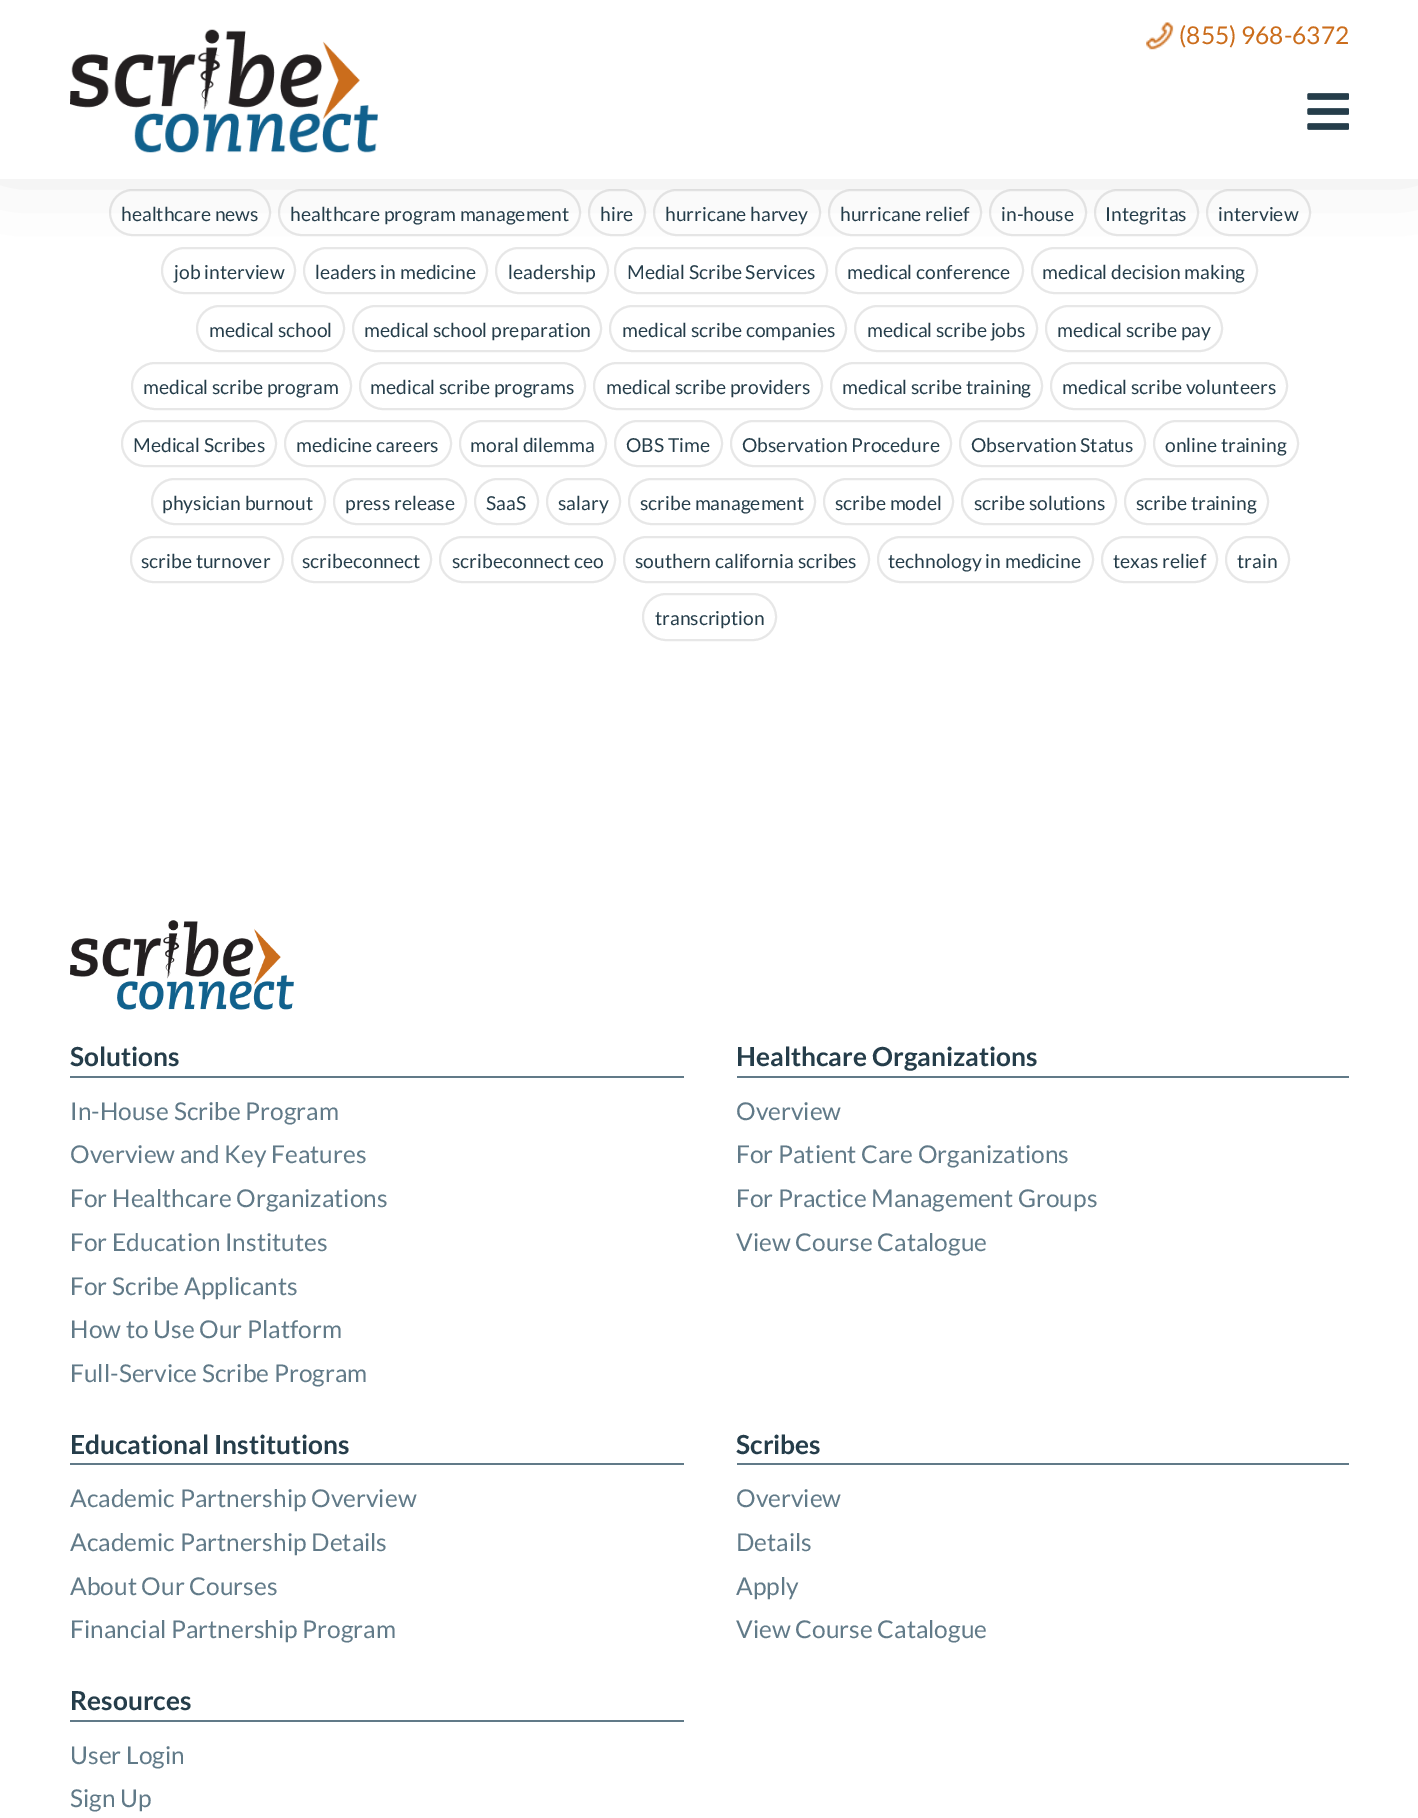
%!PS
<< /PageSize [1418 1818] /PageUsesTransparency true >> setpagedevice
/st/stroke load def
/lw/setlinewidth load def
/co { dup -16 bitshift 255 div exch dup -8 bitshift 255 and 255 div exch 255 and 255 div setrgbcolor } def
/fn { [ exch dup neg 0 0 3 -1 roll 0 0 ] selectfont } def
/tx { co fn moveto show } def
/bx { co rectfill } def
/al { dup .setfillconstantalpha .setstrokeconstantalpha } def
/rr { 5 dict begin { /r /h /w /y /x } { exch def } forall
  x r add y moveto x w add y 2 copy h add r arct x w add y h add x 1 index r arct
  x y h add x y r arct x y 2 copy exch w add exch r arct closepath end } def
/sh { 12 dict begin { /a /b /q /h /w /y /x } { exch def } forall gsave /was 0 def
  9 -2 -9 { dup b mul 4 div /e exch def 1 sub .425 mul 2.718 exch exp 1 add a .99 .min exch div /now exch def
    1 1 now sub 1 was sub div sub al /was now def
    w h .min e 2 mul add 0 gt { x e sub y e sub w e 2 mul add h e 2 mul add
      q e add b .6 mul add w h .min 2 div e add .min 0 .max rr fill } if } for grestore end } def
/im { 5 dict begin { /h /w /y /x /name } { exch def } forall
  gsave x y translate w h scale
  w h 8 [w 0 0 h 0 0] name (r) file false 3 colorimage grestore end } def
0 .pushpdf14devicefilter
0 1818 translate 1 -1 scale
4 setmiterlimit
0 0 1418 1818 16#FFFFFF bx
16#E7E7E7 co
2 lw
110 190 160 45 22.5 rr st
279 190 301 45 22.5 rr st
589 190 56 45 22.5 rr st
654 190 166 45 22.5 rr st
829 190 152 45 22.5 rr st
990 190 96 45 22.5 rr st
1095 190 103 45 22.5 rr st
1207 190 103 45 22.5 rr st
162 248 133 45 22.5 rr st
304 248 183 45 22.5 rr st
496 248 112 45 22.5 rr st
615 248 212 45 22.5 rr st
836 248 187 45 22.5 rr st
1032 248 225 45 22.5 rr st
16#000000 co
0 -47 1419 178 0 47 .25 sh
0 0 1418 179 16#FFFFFF bx
(media/1.raw) 1146 22 28 28 im
(media/2.raw) 70 29 308 124 im
(media/3.raw) 1307 93 42 37 im
16#E7E7E7 co
197 306 147 45 22.5 rr st
353 306 248 45 22.5 rr st
610 306 236 45 22.5 rr st
855 306 182 45 22.5 rr st
1046 306 176 45 22.5 rr st
132 363 219 46 23 rr st
360 363 225 46 23 rr st
594 363 228 46 23 rr st
831 363 211 46 23 rr st
1051 363 236 46 23 rr st
122 421 154 45 22.5 rr st
285 421 166 45 22.5 rr st
460 421 146 45 22.5 rr st
615 421 107 45 22.5 rr st
731 421 220 45 22.5 rr st
960 421 185 45 22.5 rr st
1154 421 144 45 22.5 rr st
152 479 173 45 22.5 rr st
334 479 132 45 22.5 rr st
475 479 63 45 22.5 rr st
547 479 73 45 22.5 rr st
629 479 186 45 22.5 rr st
824 479 129 45 22.5 rr st
962 479 154 45 22.5 rr st
1125 479 143 45 22.5 rr st
131 537 152 45 22.5 rr st
292 537 139 45 22.5 rr st
440 537 175 45 22.5 rr st
624 537 245 45 22.5 rr st
878 537 215 45 22.5 rr st
1102 537 115 45 22.5 rr st
1226 537 63 45 22.5 rr st
643 594 133 46 23 rr st
(media/4.raw) 70 920 224 90 im
70 1076 614 2 16#617A88 bx
737 1076 612 2 16#617A88 bx
70 1463 614 2 16#617A88 bx
737 1463 612 2 16#617A88 bx
70 1720 614 2 16#617A88 bx
(\(855\) 968-6372) 1179 44 /Lato-Regular 24.5 16#CB6D1C tx
(healthcare news) 121 221 /Lato-Regular 19.25 16#253D4A tx
(healthcare program management) 290 221 /Lato-Regular 19.25 16#253D4A tx
(hire) 600 221 /Lato-Regular 19.25 16#253D4A tx
(hurricane harvey) 665 221 /Lato-Regular 19.25 16#253D4A tx
(hurricane relief) 840 221 /Lato-Regular 19.25 16#253D4A tx
(in-house) 1001 221 /Lato-Regular 19.25 16#253D4A tx
(Integritas) 1105 221 /Lato-Regular 19.25 16#253D4A tx
(interview) 1218 221 /Lato-Regular 19.25 16#253D4A tx
(job interview) 174 279 /Lato-Regular 19.25 16#253D4A tx
(leaders in medicine) 315 279 /Lato-Regular 19.25 16#253D4A tx
(leadership) 508 279 /Lato-Regular 19.25 16#253D4A tx
(Medial Scribe Services) 627 279 /Lato-Regular 19.25 16#253D4A tx
(medical conference) 847 279 /Lato-Regular 19.25 16#253D4A tx
(medical decision making) 1042 279 /Lato-Regular 19.25 16#253D4A tx
(medical school) 209 337 /Lato-Regular 19.25 16#253D4A tx
(medical school preparation) 364 337 /Lato-Regular 19.25 16#253D4A tx
(medical scribe companies) 622 337 /Lato-Regular 19.25 16#253D4A tx
(medical scribe jobs) 867 337 /Lato-Regular 19.25 16#253D4A tx
(medical scribe pay) 1057 337 /Lato-Regular 19.25 16#253D4A tx
(medical scribe program) 143 394 /Lato-Regular 19.25 16#253D4A tx
(medical scribe programs) 370 394 /Lato-Regular 19.25 16#253D4A tx
(medical scribe providers) 606 394 /Lato-Regular 19.25 16#253D4A tx
(medical scribe training) 842 394 /Lato-Regular 19.25 16#253D4A tx
(medical scribe volunteers) 1062 394 /Lato-Regular 19.25 16#253D4A tx
(Medical Scribes) 133 452 /Lato-Regular 19.25 16#253D4A tx
(medicine careers) 296 452 /Lato-Regular 19.25 16#253D4A tx
(moral dilemma) 470 452 /Lato-Regular 19.25 16#253D4A tx
(OBS Time) 626 452 /Lato-Regular 19.25 16#253D4A tx
(Observation Procedure) 742 452 /Lato-Regular 19.25 16#253D4A tx
(Observation Status) 971 452 /Lato-Regular 19.25 16#253D4A tx
(online training) 1165 452 /Lato-Regular 19.25 16#253D4A tx
(physician burnout) 162 510 /Lato-Regular 19.25 16#253D4A tx
(press release) 345 510 /Lato-Regular 19.25 16#253D4A tx
(SaaS) 486 510 /Lato-Regular 19.25 16#253D4A tx
(salary) 558 510 /Lato-Regular 19.25 16#253D4A tx
(scribe management) 640 510 /Lato-Regular 19.25 16#253D4A tx
(scribe model) 835 510 /Lato-Regular 19.25 16#253D4A tx
(scribe solutions) 974 510 /Lato-Regular 19.25 16#253D4A tx
(scribe training) 1136 510 /Lato-Regular 19.25 16#253D4A tx
(scribe turnover) 141 568 /Lato-Regular 19.25 16#253D4A tx
(scribeconnect) 302 568 /Lato-Regular 19.25 16#253D4A tx
(scribeconnect ceo) 452 568 /Lato-Regular 19.25 16#253D4A tx
(southern california scribes) 635 568 /Lato-Regular 19.25 16#253D4A tx
(technology in medicine) 888 568 /Lato-Regular 19.25 16#253D4A tx
(texas relief) 1113 568 /Lato-Regular 19.25 16#253D4A tx
(train) 1237 568 /Lato-Regular 19.25 16#253D4A tx
(transcription) 655 625 /Lato-Regular 19.25 16#253D4A tx
(Solutions) 70 1066 /Lato-Bold 26.25 16#253D4A tx
(In-House Scribe Program) 70 1120 /Lato-Regular 24.5 16#617A88 tx
(Overview and Key Features) 70 1163 /Lato-Regular 24.5 16#617A88 tx
(For Healthcare Organizations) 70 1207 /Lato-Regular 24.5 16#617A88 tx
(For Education Institutes) 70 1251 /Lato-Regular 24.5 16#617A88 tx
(For Scribe Applicants) 70 1295 /Lato-Regular 24.5 16#617A88 tx
(How to Use Our Platform) 70 1338 /Lato-Regular 24.5 16#617A88 tx
(Full-Service Scribe Program) 70 1382 /Lato-Regular 24.5 16#617A88 tx
(Healthcare Organizations) 736 1066 /Lato-Bold 26.25 16#253D4A tx
(Overview) 736 1120 /Lato-Regular 24.5 16#617A88 tx
(For Patient Care Organizations) 736 1163 /Lato-Regular 24.5 16#617A88 tx
(For Practice Management Groups) 736 1207 /Lato-Regular 24.5 16#617A88 tx
(View Course Catalogue) 736 1251 /Lato-Regular 24.5 16#617A88 tx
(Educational Institutions) 70 1454 /Lato-Bold 26.25 16#253D4A tx
(Academic Partnership Overview) 70 1507 /Lato-Regular 24.5 16#617A88 tx
(Academic Partnership Details) 70 1551 /Lato-Regular 24.5 16#617A88 tx
(About Our Courses) 70 1595 /Lato-Regular 24.5 16#617A88 tx
(Financial Partnership Program) 70 1638 /Lato-Regular 24.5 16#617A88 tx
(Scribes) 736 1454 /Lato-Bold 26.25 16#253D4A tx
(Overview) 736 1507 /Lato-Regular 24.5 16#617A88 tx
(Details) 736 1551 /Lato-Regular 24.5 16#617A88 tx
(Apply) 736 1595 /Lato-Regular 24.5 16#617A88 tx
(View Course Catalogue) 736 1638 /Lato-Regular 24.5 16#617A88 tx
(Resources) 70 1710 /Lato-Bold 26.25 16#253D4A tx
(User Login) 70 1764 /Lato-Regular 24.5 16#617A88 tx
(Sign Up) 70 1807 /Lato-Regular 24.5 16#617A88 tx
.poppdf14devicefilter showpage
